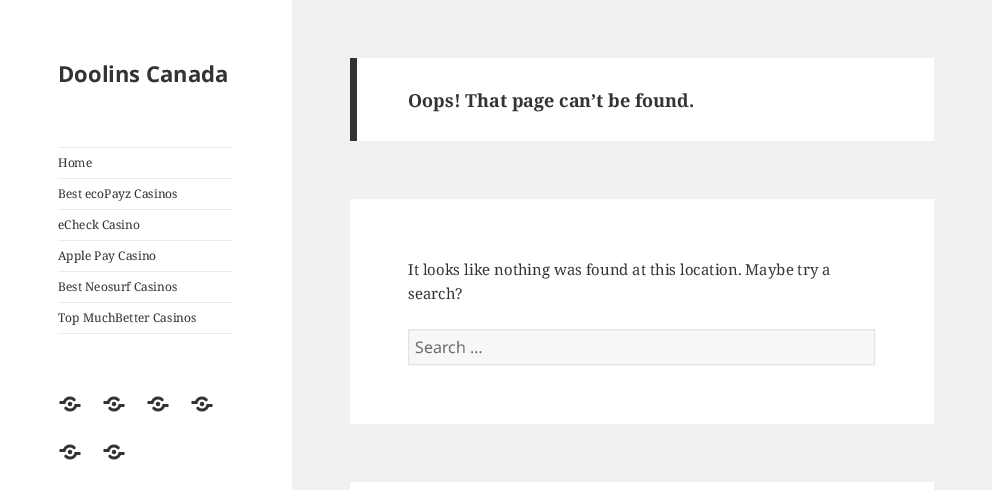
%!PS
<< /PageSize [992 490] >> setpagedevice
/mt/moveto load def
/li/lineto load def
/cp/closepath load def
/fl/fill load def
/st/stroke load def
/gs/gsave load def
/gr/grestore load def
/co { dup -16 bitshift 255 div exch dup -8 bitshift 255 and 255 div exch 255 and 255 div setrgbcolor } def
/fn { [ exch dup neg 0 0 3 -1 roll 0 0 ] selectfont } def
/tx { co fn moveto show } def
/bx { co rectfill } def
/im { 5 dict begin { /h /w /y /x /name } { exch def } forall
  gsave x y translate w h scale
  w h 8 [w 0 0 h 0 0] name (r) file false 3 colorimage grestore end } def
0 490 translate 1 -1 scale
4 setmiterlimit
0 0 992 490 16#F1F1F1 bx
0 0 292 490 16#FFFFFF bx
58 147 175 1 16#EBEBEB bx
58 333 175 1 16#EBEBEB bx
58 178 175 1 16#EBEBEB bx
58 209 175 1 16#EBEBEB bx
58 240 175 1 16#EBEBEB bx
58 271 175 1 16#EBEBEB bx
58 302 175 1 16#EBEBEB bx
(media/1.raw) 59 396 22 16 im
(media/1.raw) 103 396 22 16 im
(media/1.raw) 147 396 22 16 im
(media/1.raw) 191 396 22 16 im
(media/1.raw) 59 444 22 16 im
(media/1.raw) 103 444 22 16 im
357 58 577 83 16#FFFFFF bx
350 58 7 83 16#333333 bx
350 199 584 225 16#FFFFFF bx
16#F7F7F7 co
408.5 329.5 mt 874.5 329.5 li 874.5 364.5 li 408.5 364.5 li cp gs fl gr
16#E3E3E3 co
st
350 482 584 8 16#FFFFFF bx
(Doolins Canada) 58 82 /NotoSans-Bold 22 16#333333 tx
(Home) 58 167 /NotoSerif-Regular 12 16#333333 tx
(Best ecoPayz Casinos) 58 198 /NotoSerif-Regular 12 16#333333 tx
(eCheck Casino) 58 229 /NotoSerif-Regular 12 16#333333 tx
(Apple Pay Casino) 58 260 /NotoSerif-Regular 12 16#333333 tx
(Best Neosurf Casinos) 58 291 /NotoSerif-Regular 12 16#333333 tx
(Top MuchBetter Casinos) 58 322 /NotoSerif-Regular 12 16#333333 tx
(Oops! That page can’t be found.) 408 107 /NotoSerif-Bold 18 16#333333 tx
(It looks like nothing was found at this location. Maybe try a) 408 275 /NotoSerif-Regular 15 16#333333 tx
(search?) 408 299 /NotoSerif-Regular 15 16#333333 tx
(Search …) 415 353 /NotoSans-Regular 16 16#6E6E6E tx
showpage
